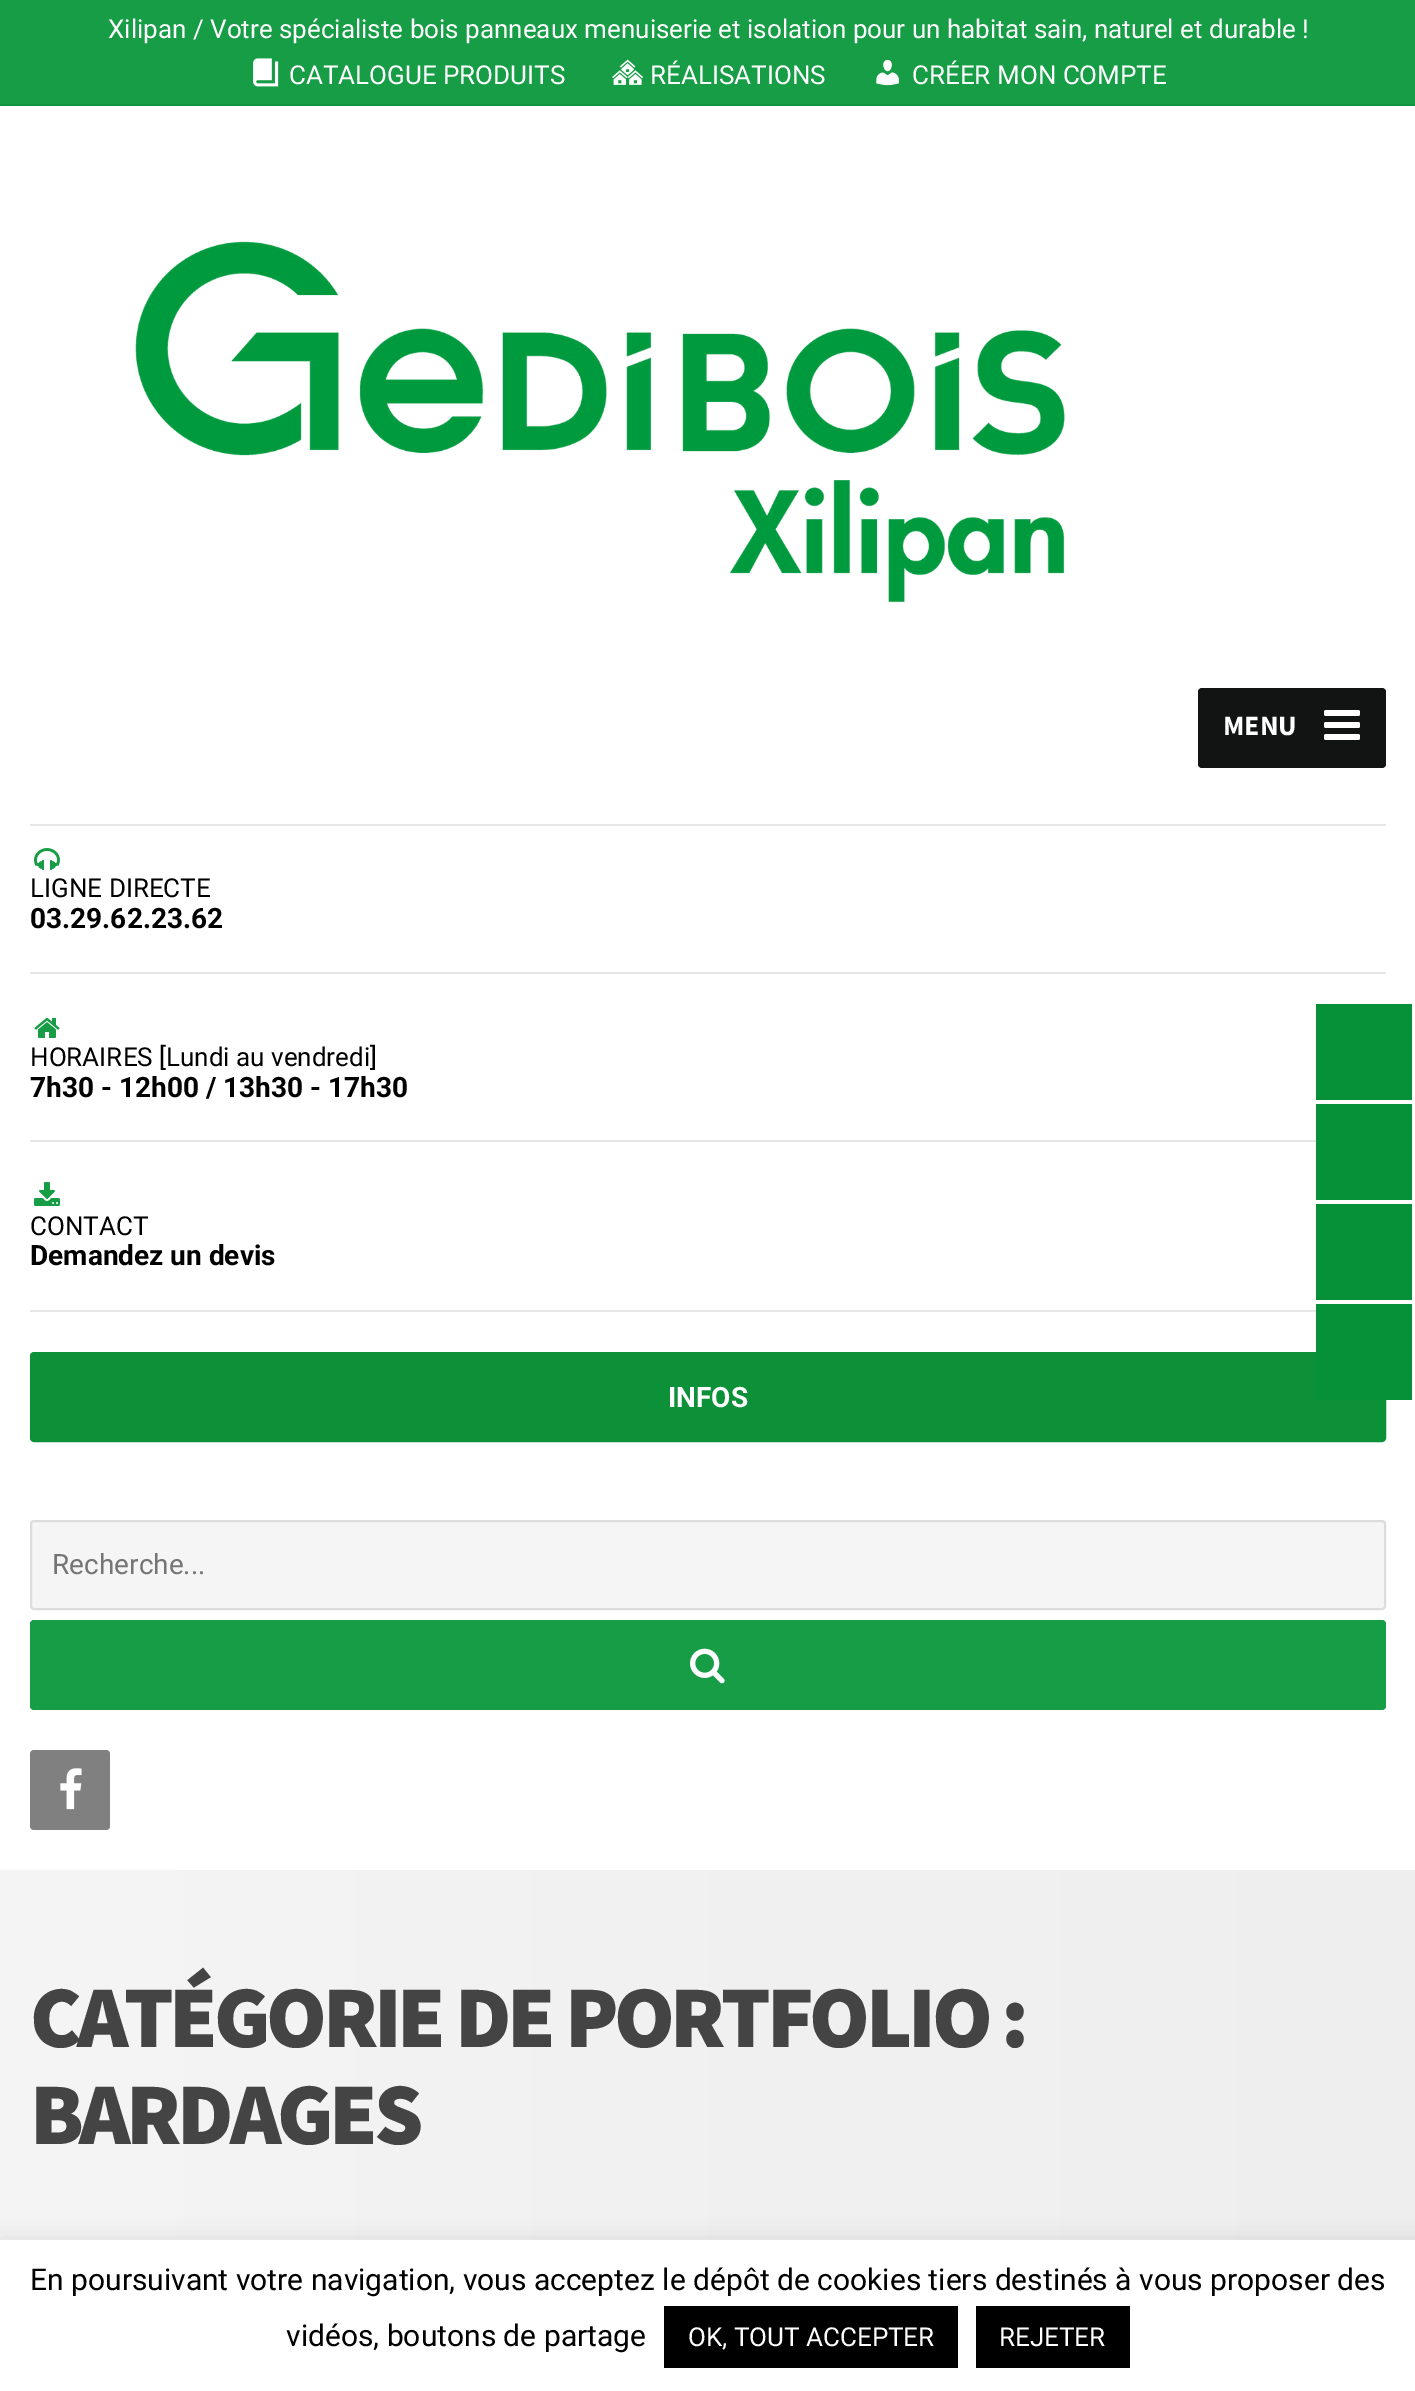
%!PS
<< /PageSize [1415 2391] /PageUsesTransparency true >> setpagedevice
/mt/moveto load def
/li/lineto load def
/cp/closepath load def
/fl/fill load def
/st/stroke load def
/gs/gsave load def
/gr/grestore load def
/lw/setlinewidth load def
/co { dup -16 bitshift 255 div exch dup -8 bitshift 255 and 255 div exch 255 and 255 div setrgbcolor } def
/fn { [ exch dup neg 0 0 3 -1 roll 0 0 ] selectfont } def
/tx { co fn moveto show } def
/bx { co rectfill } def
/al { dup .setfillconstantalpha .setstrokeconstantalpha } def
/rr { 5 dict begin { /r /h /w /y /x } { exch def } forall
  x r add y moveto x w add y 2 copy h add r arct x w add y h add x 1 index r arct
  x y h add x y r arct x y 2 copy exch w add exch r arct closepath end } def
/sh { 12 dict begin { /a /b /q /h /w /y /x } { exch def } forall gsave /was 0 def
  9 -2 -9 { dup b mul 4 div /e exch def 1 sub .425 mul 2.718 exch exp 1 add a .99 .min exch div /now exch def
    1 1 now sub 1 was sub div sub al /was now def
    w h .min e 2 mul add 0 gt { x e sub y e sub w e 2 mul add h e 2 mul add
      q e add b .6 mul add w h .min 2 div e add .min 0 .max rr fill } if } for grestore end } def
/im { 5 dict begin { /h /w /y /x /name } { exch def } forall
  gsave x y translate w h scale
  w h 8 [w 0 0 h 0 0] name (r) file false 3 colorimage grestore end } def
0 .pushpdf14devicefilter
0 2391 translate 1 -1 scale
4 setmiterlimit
0 0 1415 2391 16#FFFFFF bx
0 0 1415 104 16#179D45 bx
0 104 1415 2 16#0F953D bx
(media/1.raw) 253 58 26 29 im
(media/2.raw) 612 59 32 26 im
(media/3.raw) 876 59 23 27 im
30 824 1356 2 16#E6E6E6 bx
(media/4.raw) 135 241 930 362 im
16#121413 co
1198 688 188 80 4 rr fl
16#FFFFFF co
1324 710 36 6 2 rr fl
1324 722 36 6 2 rr fl
1324 734 36 6 2 rr fl
30 972 1356 2 16#E6E6E6 bx
(media/5.raw) 34 848 26 22 im
30 1140 1286 2 16#E6E6E6 bx
(media/6.raw) 34 1018 26 20 im
30 1310 1286 2 16#E6E6E6 bx
(media/7.raw) 34 1182 26 24 im
16#0C9038 co
31 1353 1354 88 3 rr gs fl gr
2 lw
st
16#F5F5F5 co
30 1520 1356 90 4 rr fl
0.1 al
16#000000 co
31 1521 1354 88 3 rr st
1 al
16#179D45 co
30 1620 1356 90 4 rr fl
(media/8.raw) 690 1648 35 36 im
16#808080 co
30 1750 80 80 4 rr fl
(media/9.raw) 60 1768 22 42 im
gs 0 1870 mt 1415 1870 li 1415 2240 li 0 2240 li cp clip newpath
<< /ShadingType 2 /ColorSpace /DeviceRGB /Coords [0 2066 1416 2066] /Extend [true true] /Function << /FunctionType 2 /Domain [0 1] /C0 [.961 .961 .961] /C1 [.933 .933 .933] /N 1 >> >> shfill gr
1316 1004 96 96 16#069038 bx
1316 1104 96 96 16#069038 bx
1316 1204 96 96 16#069038 bx
1316 1304 96 96 16#069038 bx
16#ACABAB co
0 2238 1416 152 0 10 .3 sh
0 2240 1415 151 16#FFFFFF bx
664 2306 294 62 16#000000 bx
976 2306 154 62 16#000000 bx
(Xilipan / Votre spécialiste bois panneaux menuiserie et isolation pour un habitat sain, naturel et durable !) 108 38 /Roboto-Regular 26 16#FFFFFF tx
(CATALOGUE PRODUITS) 289 84 /Roboto-Regular 26 16#FFFFFF tx
(RÉALISATIONS) 650 84 /Roboto-Regular 26 16#FFFFFF tx
(CRÉER MON COMPTE) 912 84 /Roboto-Regular 26 16#FFFFFF tx
(MENU) 1223 735 /SourceSansPro-Bold 28 16#FFFFFF tx
(LIGNE DIRECTE) 30 897 /Roboto-Regular 26 16#000000 tx
(03.29.62.23.62) 30 928 /Roboto-Bold 28 16#000000 tx
(HORAIRES [Lundi au vendredi]) 30 1066 /Roboto-Regular 26 16#000000 tx
(7h30 - 12h00 / 13h30 - 17h30) 30 1097 /Roboto-Bold 28 16#000000 tx
(CONTACT) 30 1235 /Roboto-Regular 26 16#000000 tx
(Demandez un devis) 30 1265 /Roboto-Bold 28 16#000000 tx
(INFOS) 668 1407 /Roboto-Bold 28 16#FFFFFF tx
(Recherche...) 52 1574 /Roboto-Regular 28 16#757575 tx
/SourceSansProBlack-Black 88 fn
16#444444 co
30 2047 mt -4.4 0 (CATÉGORIE DE PORTFOLIO :) ashow
30 2144 mt -4.4 0 (BARDAGES) ashow
(En poursuivant votre navigation, vous acceptez le dépôt de cookies tiers destinés à vous proposer des) 30 2290 /Roboto-Regular 30 16#000000 tx
(vidéos, boutons de partage) 286 2346 /Roboto-Regular 30 16#000000 tx
(OK, TOUT ACCEPTER) 688 2346 /Roboto-Regular 26 16#FFFFFF tx
(REJETER) 999 2346 /Roboto-Regular 26 16#FFFFFF tx
.poppdf14devicefilter showpage
